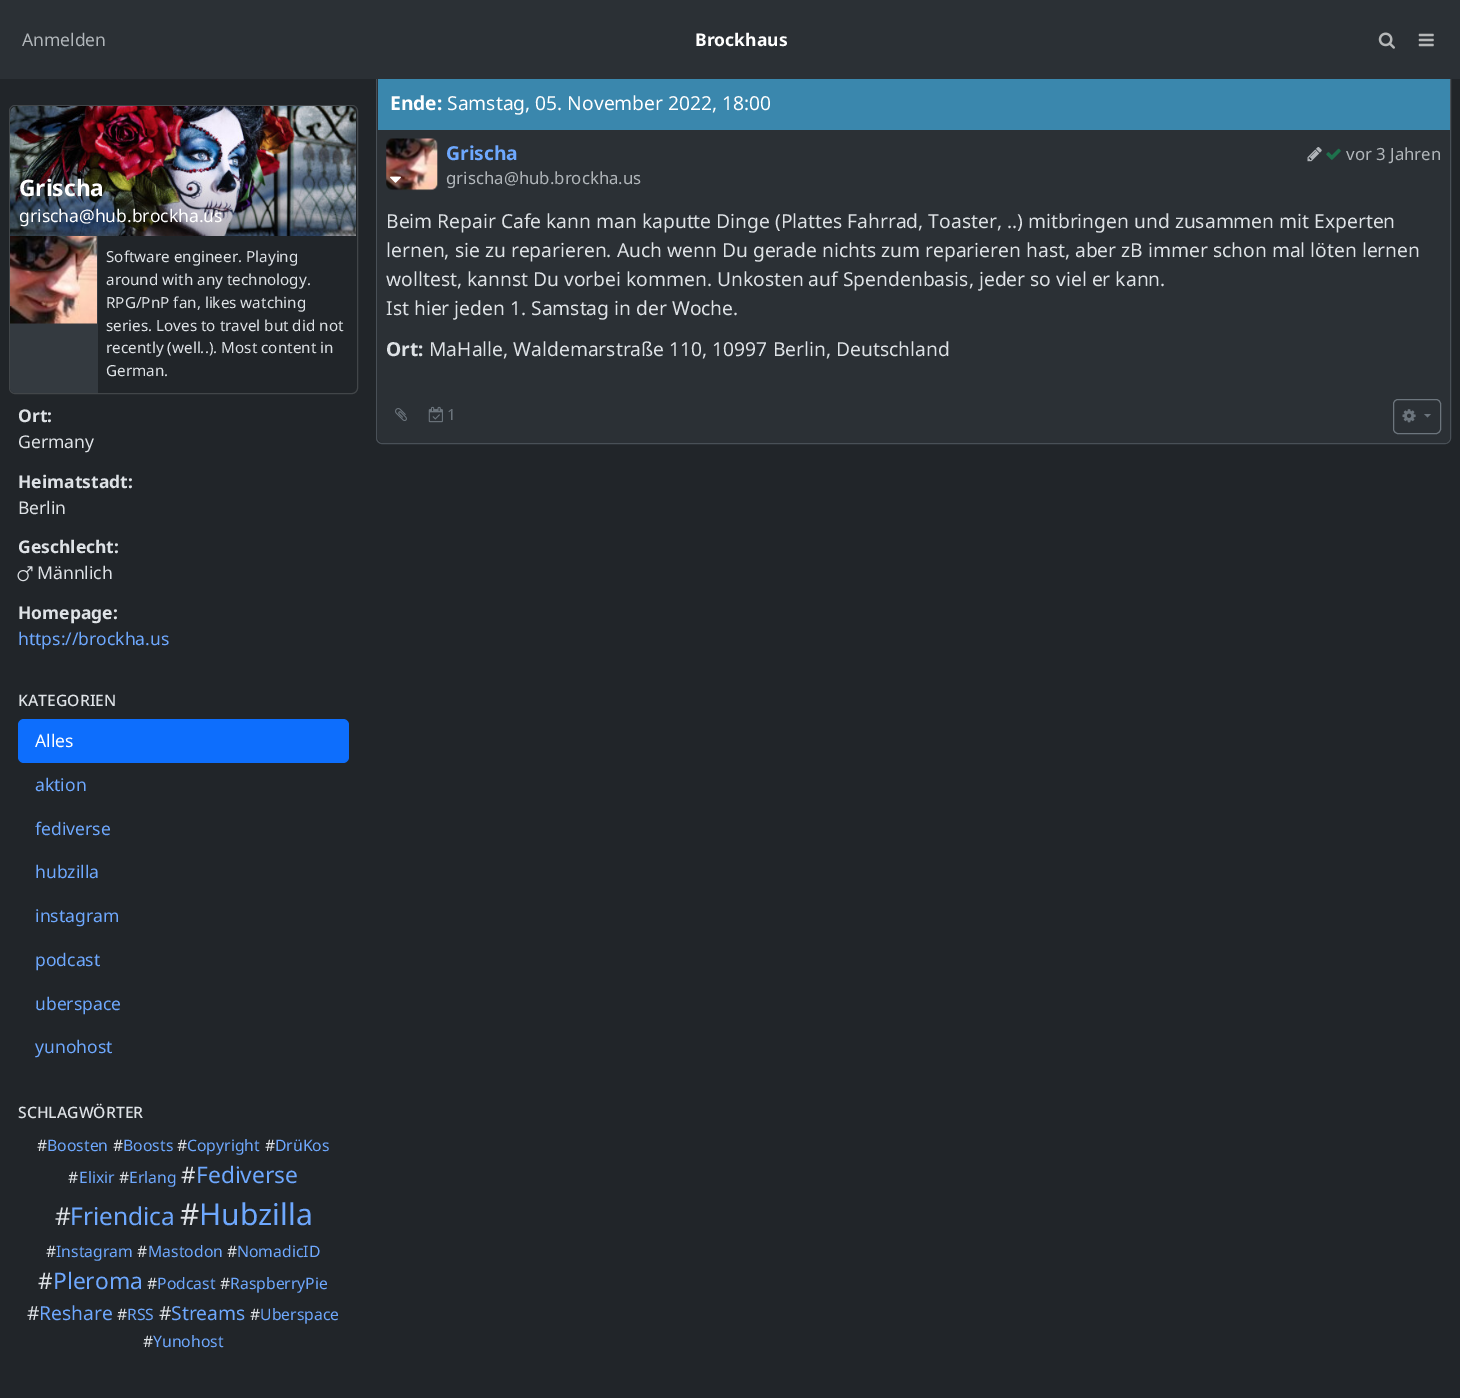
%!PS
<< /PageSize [1460 1398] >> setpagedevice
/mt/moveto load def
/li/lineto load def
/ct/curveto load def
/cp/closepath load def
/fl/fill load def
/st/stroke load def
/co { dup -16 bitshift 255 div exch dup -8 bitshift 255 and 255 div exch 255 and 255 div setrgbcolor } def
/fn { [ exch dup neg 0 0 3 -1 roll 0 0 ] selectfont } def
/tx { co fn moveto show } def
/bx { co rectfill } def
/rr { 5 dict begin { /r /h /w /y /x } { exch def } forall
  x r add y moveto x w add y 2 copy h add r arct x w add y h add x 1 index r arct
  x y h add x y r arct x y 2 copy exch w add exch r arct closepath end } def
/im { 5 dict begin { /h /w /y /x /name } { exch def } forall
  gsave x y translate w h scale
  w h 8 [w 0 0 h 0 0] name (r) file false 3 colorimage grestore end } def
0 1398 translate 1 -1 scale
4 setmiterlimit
0 0 1460 1398 16#212529 bx
16#495057 co
376.5 6.5 1074 437 5.5 rr st
16#2B3035 co
378 8 1072 435 6 rr fl
0 0 1460 79 16#2B3035 bx
(media/1.raw) 1378 32 17 17 im
(media/2.raw) 1418 33 16 14 im
16#424649 co
9.5 105.5 348 288 5.5 rr st
(media/3.raw) 10 106 346 130 im
16#343A40 co
10 236 mt 98 236 li 98 393 li 16 393 li 12.5 393 10 390.5 10 387 ct cp fl
(media/4.raw) 10 236 87 88 im
(media/5.raw) 17 566 16 16 im
16#0D6EFD co
18 719 331 44 6 rr fl
378 79 1072 51 16#3A87AD bx
(media/6.raw) 386 138 52 53 im
(media/7.raw) 390 176 11 7 im
(media/8.raw) 1307 147 15 15 im
(media/9.raw) 1326 148 15 12 im
(media/10.raw) 395 408 12 13 im
(media/11.raw) 428 406 15 17 im
16#6C757D co
1393.5 399.5 47 34 4.5 rr st
(media/12.raw) 1402 409 14 14 im
1424 414 mt 1431 414 li 1427.5 417.5 li cp fl
(Anmelden) 22 46 /NotoSans-Regular 17.5 16#B1B6BA tx
(Brockhaus) 695 46 /NotoSans-Bold 17.5 16#FFFFFF tx
(Grischa) 19 196 /NotoSans-Bold 22.75 16#FFFFFF tx
(grischa@hub.brockha.us) 19 222 /NotoSans-Regular 17.5 16#FFFFFF tx
(Software engineer. Playing) 106 262 /NotoSans-Regular 15.25 16#DEE2E6 tx
(around with any technology.) 106 285 /NotoSans-Regular 15.25 16#DEE2E6 tx
(RPG/PnP fan, likes watching) 106 308 /NotoSans-Regular 15.25 16#DEE2E6 tx
(series. Loves to travel but did not) 106 331 /NotoSans-Regular 15.25 16#DEE2E6 tx
(recently \(well..\). Most content in) 106 353 /NotoSans-Regular 15.25 16#DEE2E6 tx
(German.) 106 376 /NotoSans-Regular 15.25 16#DEE2E6 tx
(Ort:) 18 422 /NotoSans-Bold 17.5 16#DEE2E6 tx
(Germany) 18 448 /NotoSans-Regular 17.5 16#DEE2E6 tx
(Heimatstadt:) 18 488 /NotoSans-Bold 17.5 16#DEE2E6 tx
(Berlin) 18 514 /NotoSans-Regular 17.5 16#DEE2E6 tx
(Geschlecht:) 18 553 /NotoSans-Bold 17.5 16#DEE2E6 tx
(Männlich) 37 579 /NotoSans-Regular 17.5 16#DEE2E6 tx
(Homepage:) 18 619 /NotoSans-Bold 17.5 16#DEE2E6 tx
(https://brockha.us) 18 645 /NotoSans-Regular 17.5 16#6EA8FE tx
(KATEGORIEN) 18 706 /NotoSans-Medium 15.75 16#DEE2E6 tx
(Alles) 35 747 /NotoSans-Regular 17.5 16#FFFFFF tx
(aktion) 35 791 /NotoSans-Regular 17.5 16#6EA8FE tx
(fediverse) 35 835 /NotoSans-Regular 17.5 16#6EA8FE tx
(hubzilla) 35 878 /NotoSans-Regular 17.5 16#6EA8FE tx
(instagram) 35 922 /NotoSans-Regular 17.5 16#6EA8FE tx
(podcast) 35 966 /NotoSans-Regular 17.5 16#6EA8FE tx
(uberspace) 35 1010 /NotoSans-Regular 17.5 16#6EA8FE tx
(yunohost) 35 1053 /NotoSans-Regular 17.5 16#6EA8FE tx
(SCHLAGWÖRTER) 18 1118 /NotoSans-Medium 15.75 16#DEE2E6 tx
(#) 37 1151 /NotoSans-Regular 15.75 16#DEE2E6 tx
(Boosten) 47 1151 /NotoSans-Regular 15.75 16#6EA8FE tx
(#) 113 1151 /NotoSans-Regular 15.75 16#DEE2E6 tx
(Boosts) 123 1151 /NotoSans-Regular 15.75 16#6EA8FE tx
(#) 177 1151 /NotoSans-Regular 15.75 16#DEE2E6 tx
(Copyright) 187 1151 /NotoSans-Regular 15.75 16#6EA8FE tx
(#) 265 1151 /NotoSans-Regular 15.75 16#DEE2E6 tx
(DrüKos) 275 1151 /NotoSans-Regular 15.75 16#6EA8FE tx
(#) 68 1183 /NotoSans-Regular 15.75 16#DEE2E6 tx
(Elixir) 79 1183 /NotoSans-Regular 15.75 16#6EA8FE tx
(#) 119 1183 /NotoSans-Regular 15.75 16#DEE2E6 tx
(Erlang) 129 1183 /NotoSans-Regular 15.75 16#6EA8FE tx
(#) 181 1183 /NotoSans-Regular 22.75 16#DEE2E6 tx
(Fediverse) 196 1183 /NotoSans-Regular 22.75 16#6EA8FE tx
(#) 55 1225 /NotoSans-Regular 24.5 16#DEE2E6 tx
(Friendica) 70 1225 /NotoSans-Regular 24.5 16#6EA8FE tx
(#) 180 1225 /NotoSans-Regular 30 16#DEE2E6 tx
(Hubzilla) 199 1225 /NotoSans-Regular 30 16#6EA8FE tx
(#) 46 1257 /NotoSans-Regular 15.75 16#DEE2E6 tx
(Instagram) 56 1257 /NotoSans-Regular 15.75 16#6EA8FE tx
(#) 137 1257 /NotoSans-Regular 15.75 16#DEE2E6 tx
(Mastodon) 148 1257 /NotoSans-Regular 15.75 16#6EA8FE tx
(#) 227 1257 /NotoSans-Regular 15.75 16#DEE2E6 tx
(NomadicID) 237 1257 /NotoSans-Regular 15.75 16#6EA8FE tx
(#) 38 1289 /NotoSans-Regular 22.75 16#DEE2E6 tx
(Pleroma) 53 1289 /NotoSans-Regular 22.75 16#6EA8FE tx
(#) 147 1289 /NotoSans-Regular 15.75 16#DEE2E6 tx
(Podcast) 157 1289 /NotoSans-Regular 15.75 16#6EA8FE tx
(#) 220 1289 /NotoSans-Regular 15.75 16#DEE2E6 tx
(RaspberryPie) 230 1289 /NotoSans-Regular 15.75 16#6EA8FE tx
(#) 27 1320 /NotoSans-Regular 19.25 16#DEE2E6 tx
(Reshare) 39 1320 /NotoSans-Regular 19.25 16#6EA8FE tx
(#) 117 1320 /NotoSans-Regular 15.75 16#DEE2E6 tx
(RSS) 127 1320 /NotoSans-Regular 15.75 16#6EA8FE tx
(#) 159 1320 /NotoSans-Regular 19.25 16#DEE2E6 tx
(Streams) 171 1320 /NotoSans-Regular 19.25 16#6EA8FE tx
(#) 250 1320 /NotoSans-Regular 15.75 16#DEE2E6 tx
(Uberspace) 260 1320 /NotoSans-Regular 15.75 16#6EA8FE tx
(#) 143 1347 /NotoSans-Regular 15.75 16#DEE2E6 tx
(Yunohost) 153 1347 /NotoSans-Regular 15.75 16#6EA8FE tx
(Ende:) 390 110 /NotoSans-Bold 19.25 16#FFFFFF tx
(Samstag, 05. November 2022, 18:00) 447 110 /NotoSans-Regular 19.25 16#FFFFFF tx
(Grischa) 446 160 /NotoSans-Bold 19.25 16#6EA8FE tx
(grischa@hub.brockha.us) 446 184 /NotoSans-Regular 16.8 16#B1B6BA tx
(vor 3 Jahren) 1346 160 /NotoSans-Regular 16.8 16#B1B6BA tx
(Beim Repair Cafe kann man kaputte Dinge \(Plattes Fahrrad, Toaster, ..\) mitbringen und zusammen mit Experten) 386 228 /NotoSans-Regular 19.25 16#DEE2E6 tx
(lernen, sie zu reparieren. Auch wenn Du gerade nichts zum reparieren hast, aber zB immer schon mal löten lernen) 386 257 /NotoSans-Regular 19.25 16#DEE2E6 tx
(wolltest, kannst Du vorbei kommen. Unkosten auf Spendenbasis, jeder so viel er kann.) 386 286 /NotoSans-Regular 19.25 16#DEE2E6 tx
(Ist hier jeden 1. Samstag in der Woche.) 386 315 /NotoSans-Regular 19.25 16#DEE2E6 tx
(Ort:) 386 356 /NotoSans-Bold 19.25 16#DEE2E6 tx
(MaHalle, Waldemarstraße 110, 10997 Berlin, Deutschland) 429 356 /NotoSans-Regular 19.25 16#DEE2E6 tx
(1) 447 420 /NotoSans-Regular 15.25 16#6C757D tx
showpage
